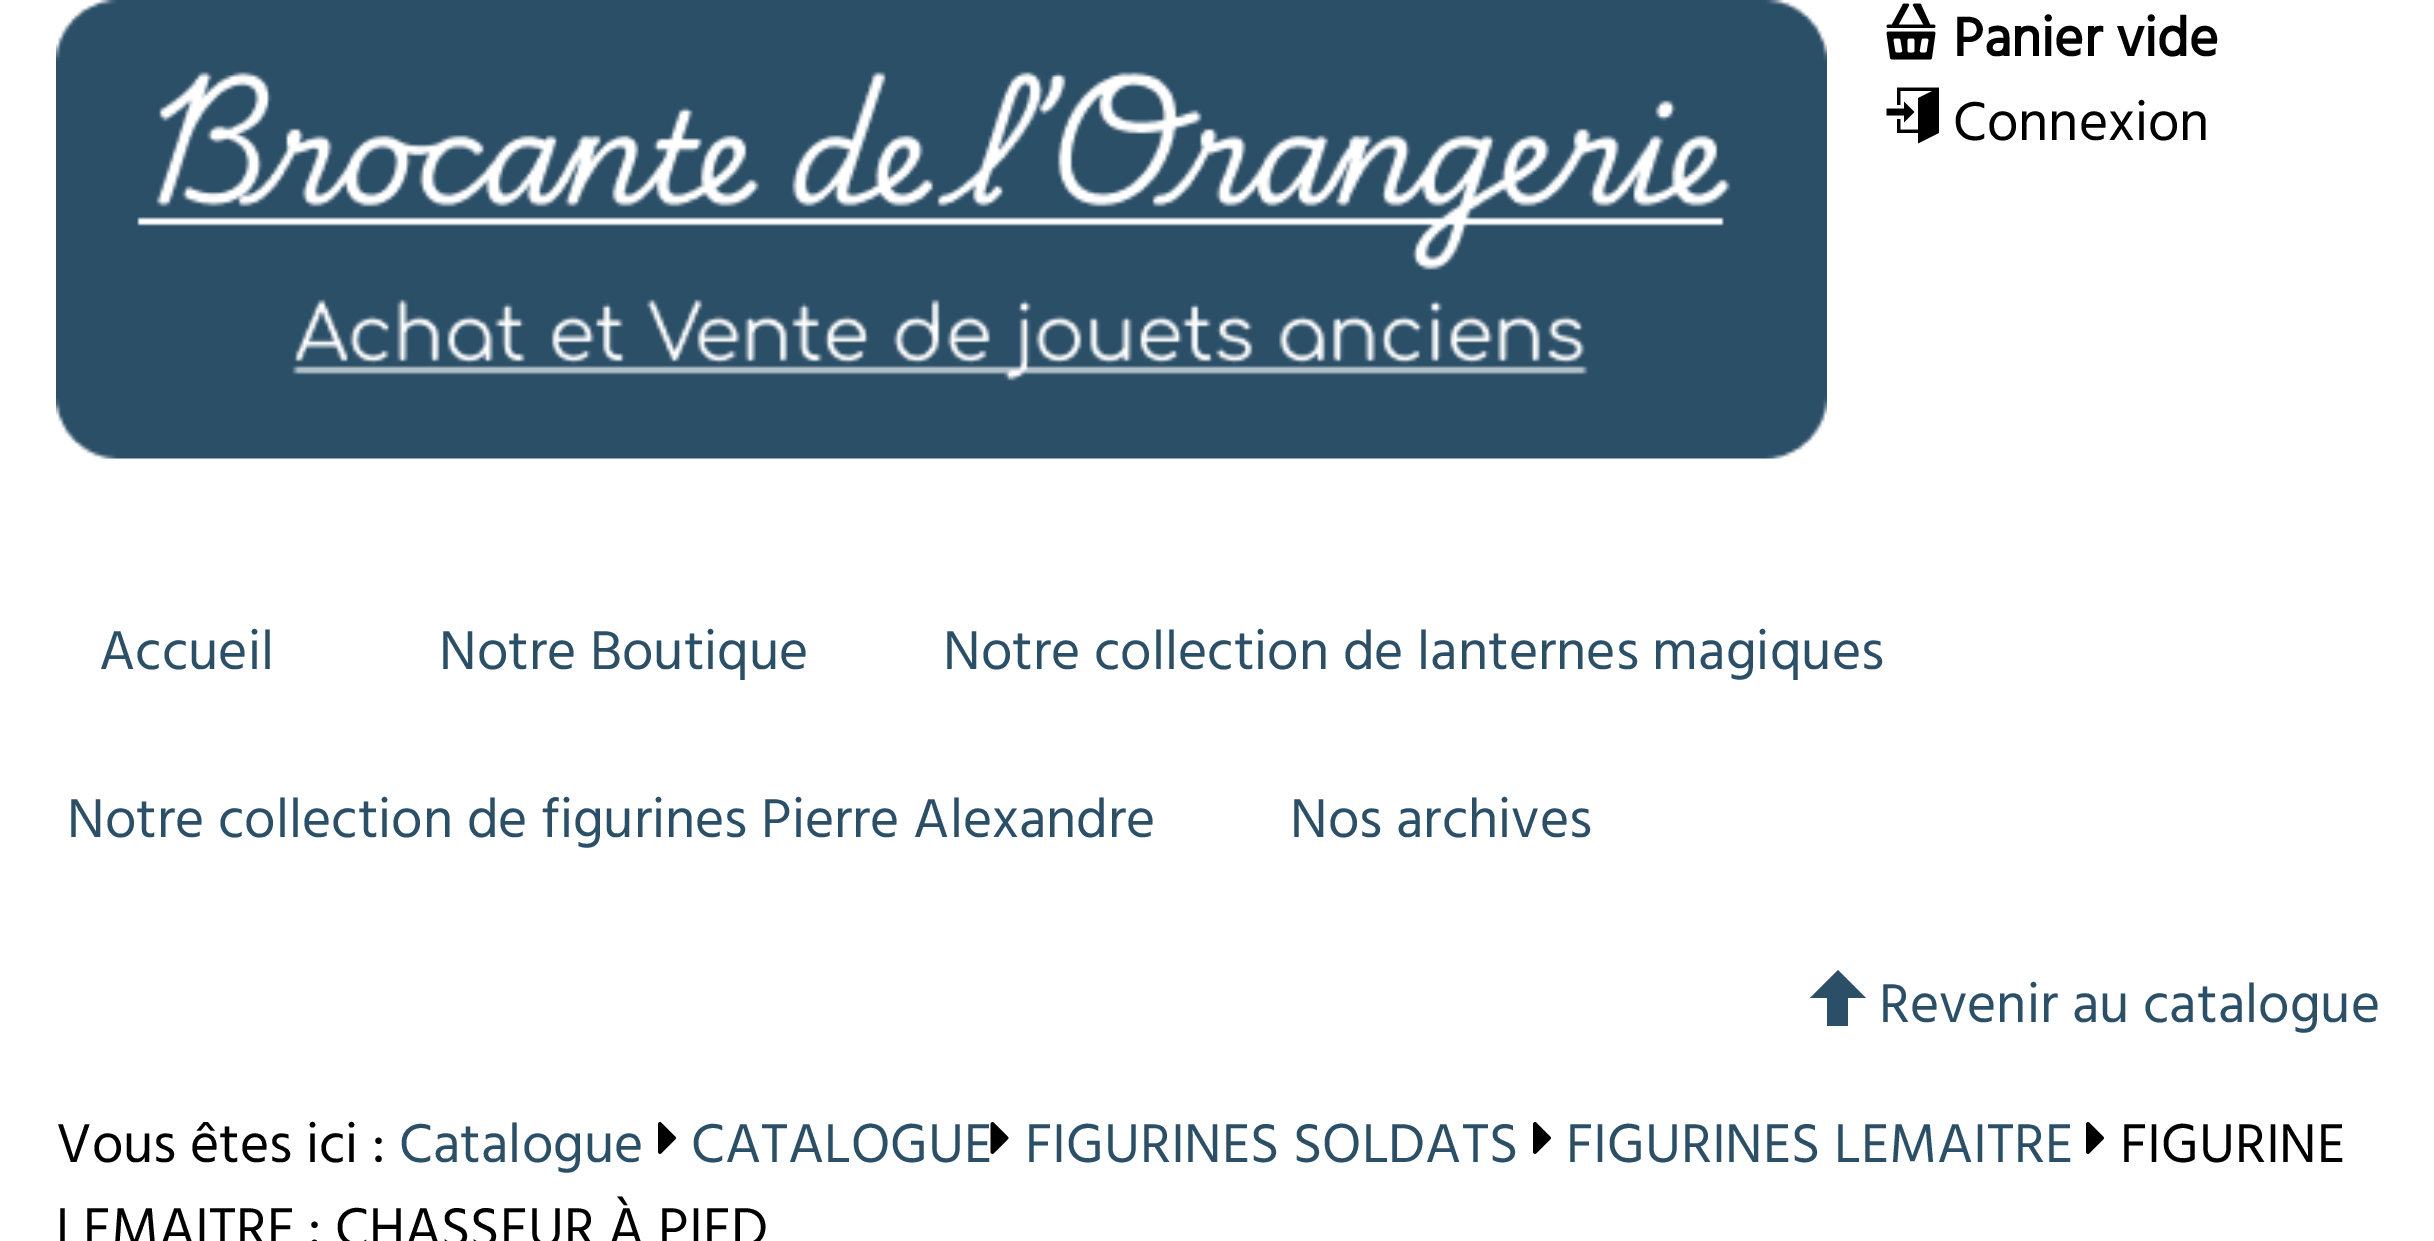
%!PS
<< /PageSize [2434 1241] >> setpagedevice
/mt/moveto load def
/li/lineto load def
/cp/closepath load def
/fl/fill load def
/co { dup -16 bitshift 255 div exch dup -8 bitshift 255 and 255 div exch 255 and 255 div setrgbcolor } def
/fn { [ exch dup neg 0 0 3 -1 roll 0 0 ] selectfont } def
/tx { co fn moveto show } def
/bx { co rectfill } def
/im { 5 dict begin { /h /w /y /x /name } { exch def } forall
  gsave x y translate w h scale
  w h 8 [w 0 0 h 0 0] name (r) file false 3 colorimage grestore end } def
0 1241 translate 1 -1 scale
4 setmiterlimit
0 0 2434 1241 16#FFFFFF bx
(media/1.raw) 56 0 1771 459 im
(media/2.raw) 1886 3 50 57 im
(media/3.raw) 1886 87 53 57 im
16#2C4F68 co
1838 970 mt 1810 998 li 1827 998 li 1827 1026 li 1848 1026 li 1848 998 li 1866 998 li cp fl
(media/4.raw) 658 1122 18 32 im
(media/5.raw) 990 1122 19 32 im
(media/4.raw) 1533 1122 18 32 im
(media/4.raw) 2086 1122 18 32 im
(Panier vide) 1953 56 /Hind-Bold 56 16#000000 tx
(Connexion) 1953 140 /Hind-Regular 56 16#000000 tx
(Accueil) 99 669 /Hind-Regular 56 16#2C4F68 tx
(Notre Boutique) 439 669 /Hind-Regular 56 16#2C4F68 tx
(Notre collection de lanternes magiques) 943 669 /Hind-Regular 56 16#2C4F68 tx
(Notre collection de figurines Pierre Alexandre) 67 837 /Hind-Regular 56 16#2C4F68 tx
(Nos archives) 1290 837 /Hind-Regular 56 16#2C4F68 tx
(Revenir au catalogue) 1879 1022 /Hind-Regular 56 16#2C4F68 tx
(Vous êtes ici :) 56 1162 /Hind-Regular 56 16#000000 tx
(Catalogue) 399 1162 /Hind-Regular 56 16#2C4F68 tx
(CATALOGUE) 691 1162 /Hind-Regular 56 16#2C4F68 tx
(FIGURINES SOLDATS) 1025 1162 /Hind-Regular 56 16#2C4F68 tx
(FIGURINES LEMAITRE) 1566 1162 /Hind-Regular 56 16#2C4F68 tx
(FIGURINE) 2120 1162 /Hind-Regular 56 16#000000 tx
(LEMAITRE : CHASSEUR À PIED) 56 1246 /Hind-Regular 56 16#000000 tx
showpage
